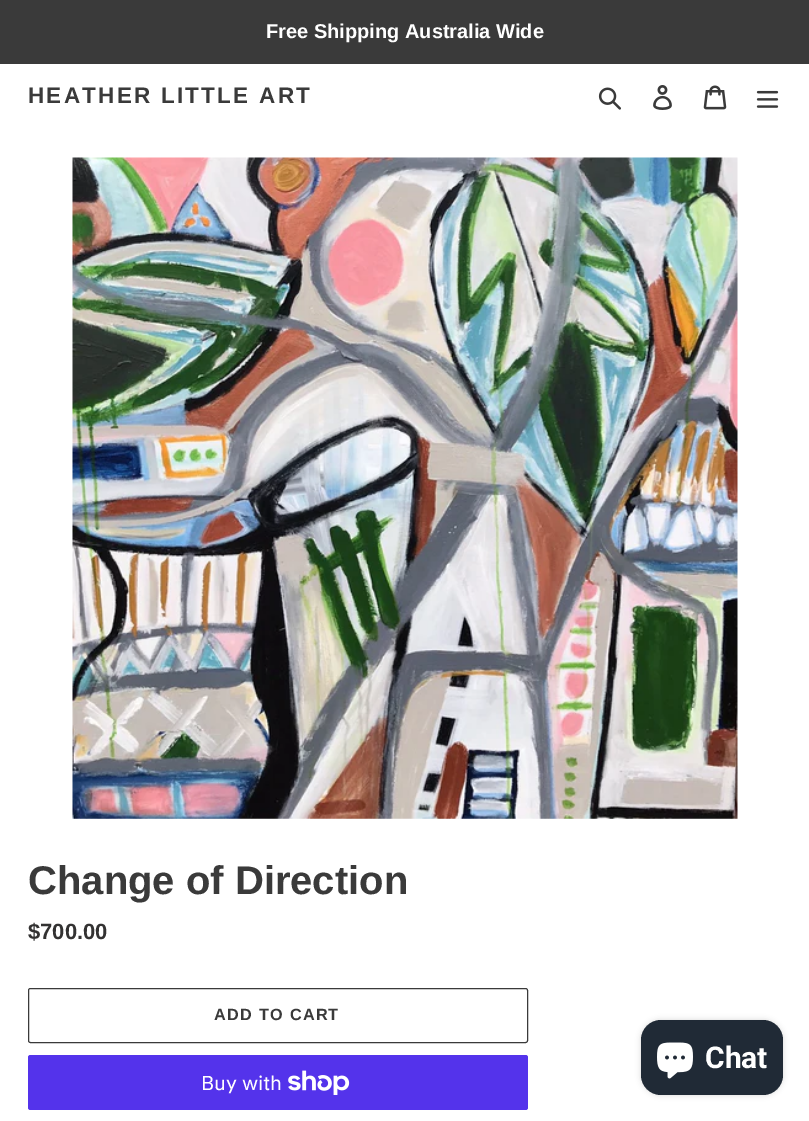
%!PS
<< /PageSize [809 1121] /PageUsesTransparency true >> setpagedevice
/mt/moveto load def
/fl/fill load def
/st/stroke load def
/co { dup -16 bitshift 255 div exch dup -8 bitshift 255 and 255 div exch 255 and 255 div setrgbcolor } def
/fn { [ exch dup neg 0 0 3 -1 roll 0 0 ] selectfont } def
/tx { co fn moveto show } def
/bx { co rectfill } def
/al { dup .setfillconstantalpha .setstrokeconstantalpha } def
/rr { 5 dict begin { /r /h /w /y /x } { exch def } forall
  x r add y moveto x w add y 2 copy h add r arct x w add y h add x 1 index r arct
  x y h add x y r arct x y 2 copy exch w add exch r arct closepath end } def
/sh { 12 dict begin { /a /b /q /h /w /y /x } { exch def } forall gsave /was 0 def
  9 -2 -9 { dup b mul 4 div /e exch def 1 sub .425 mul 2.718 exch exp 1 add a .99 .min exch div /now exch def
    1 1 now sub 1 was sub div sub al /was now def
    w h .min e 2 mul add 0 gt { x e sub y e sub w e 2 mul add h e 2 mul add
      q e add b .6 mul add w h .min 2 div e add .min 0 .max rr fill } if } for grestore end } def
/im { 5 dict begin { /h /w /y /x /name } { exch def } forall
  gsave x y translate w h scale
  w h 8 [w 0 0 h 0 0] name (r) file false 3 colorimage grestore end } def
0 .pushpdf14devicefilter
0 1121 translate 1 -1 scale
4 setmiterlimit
0 0 809 1121 16#FFFFFF bx
0 0 809 64 16#3A3A3A bx
(media/1.raw) 598 87 23 23 im
(media/2.raw) 653 85 19 25 im
(media/3.raw) 703 85 24 25 im
(media/4.raw) 756 90 23 18 im
(media/5.raw) 72 157 666 662 im
28.5 988.5 499 54 2 rr st
16#5433EB co
28 1055 500 55 2.5 rr fl
(media/6.raw) 288 1070 62 25 im
16#000000 co
641 1020 142 75 20 3 .15 sh
16#202A36 co
641 1020 142 75 20 rr fl
(media/7.raw) 657 1042 36 37 im
(Free Shipping Australia Wide) 266 38 /LiberationSans-Bold 20 16#FFFFFF tx
/LiberationSans-Bold 22.5 fn
16#3A3A3A co
28 103 mt 2.25 0 (HEATHER LITTLE ART) ashow
(Change of Direction) 28 894 /LiberationSans-Bold 40 16#3A3A3A tx
($700.00) 28 939 /LiberationSans-Bold 22 16#333232 tx
/LiberationSans-Bold 16.25 fn
16#3A3A3A co
214 1020 mt 1.25 0 (ADD TO CART) ashow
(Buy with) 201 1090 /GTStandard-Regular 20 16#FFFFFF tx
(Chat) 705 1068 /Roboto-Bold 30 16#FFFFFF tx
.poppdf14devicefilter showpage
